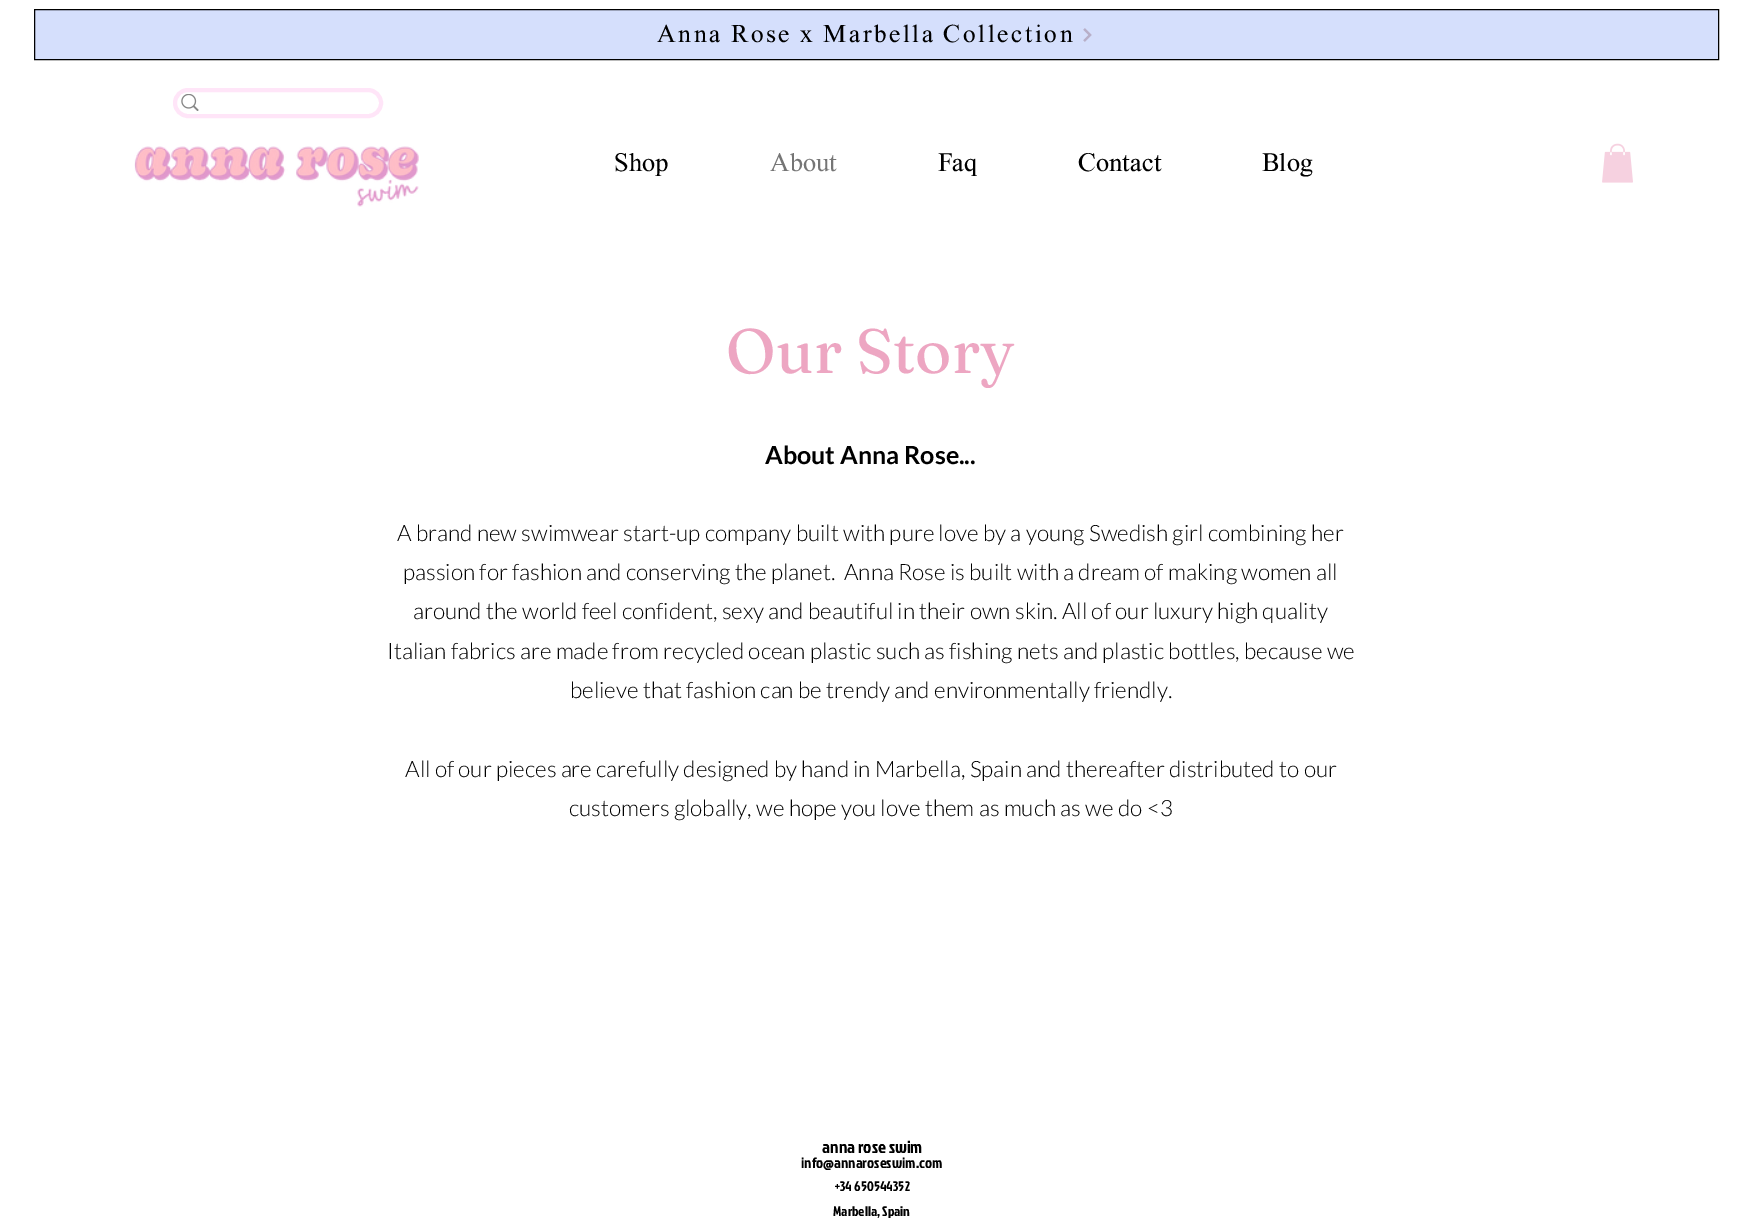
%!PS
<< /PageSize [1741 1225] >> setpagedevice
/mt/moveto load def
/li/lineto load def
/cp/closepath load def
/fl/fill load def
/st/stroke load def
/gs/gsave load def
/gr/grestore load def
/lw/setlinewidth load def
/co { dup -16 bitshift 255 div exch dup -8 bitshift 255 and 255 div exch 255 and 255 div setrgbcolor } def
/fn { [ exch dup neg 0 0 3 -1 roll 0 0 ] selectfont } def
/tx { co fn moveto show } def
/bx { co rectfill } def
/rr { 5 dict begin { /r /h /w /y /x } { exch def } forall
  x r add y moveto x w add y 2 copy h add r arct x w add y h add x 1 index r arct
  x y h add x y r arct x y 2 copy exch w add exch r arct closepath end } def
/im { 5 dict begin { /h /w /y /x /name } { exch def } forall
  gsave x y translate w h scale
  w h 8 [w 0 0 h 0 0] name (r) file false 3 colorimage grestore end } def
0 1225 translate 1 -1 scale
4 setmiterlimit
0 0 1741 1225 16#FFFFFF bx
16#D5DFFC co
34.5 9.5 mt 1718.5 9.5 li 1718.5 59.5 li 34.5 59.5 li cp gs fl gr
16#000000 co
st
(media/1.raw) 1083 28 9 14 im
16#FFE5F8 co
4 lw
175 90 206 26 13 rr st
(media/2.raw) 181 94 18 17 im
(media/3.raw) 134 146 285 61 im
(media/4.raw) 1602 143 31 40 im
/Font-Bold 25 fn
16#000000 co
657 42 mt 2.5 0 (Anna Rose x Marbella Collection) ashow
(Shop) 614 171 /Font-Bold 26 16#000000 tx
(About) 770 171 /Font-Bold 26 16#757575 tx
(Faq) 938 171 /Font-Bold 26 16#000000 tx
(Contact) 1078 171 /Font-Bold 26 16#000000 tx
(Blog) 1262 171 /Font-Bold 26 16#000000 tx
(Our Story) 726 373 /Fraunces-Regular 62.5 16#EDA6C2 tx
(About Anna Rose...) 765 464 /Lato-Bold 25 16#000000 tx
(A brand new swimwear start-up company built with pure love by a young Swedish girl combining her) 397 541 /Lato-Light 22.5 16#000000 tx
(passion for fashion and conserving the planet.  Anna Rose is built with a dream of making women all) 403 580 /Lato-Light 22.5 16#000000 tx
(around the world feel confident, sexy and beautiful in their own skin. All of our luxury high quality) 413 619 /Lato-Light 22.5 16#000000 tx
(Italian fabrics are made from recycled ocean plastic such as fishing nets and plastic bottles, because we) 387 659 /Lato-Light 22.5 16#000000 tx
(believe that fashion can be trendy and environmentally friendly.) 570 698 /Lato-Light 22.5 16#000000 tx
(All of our pieces are carefully designed by hand in Marbella, Spain and thereafter distributed to our) 405 777 /Lato-Light 22.5 16#000000 tx
(customers globally, we hope you love them as much as we do <3) 569 816 /Lato-Light 22.5 16#000000 tx
(anna rose swim) 822 1153 /JockeyOne-Regular 17.5 16#000000 tx
(info@annaroseswim.com) 801 1168 /JockeyOne-Regular 15 16#000000 tx
(+34 650544352) 835 1191 /JockeyOne-Regular 13.75 16#000000 tx
(Marbella, Spain) 833 1216 /JockeyOne-Regular 13.75 16#000000 tx
showpage
